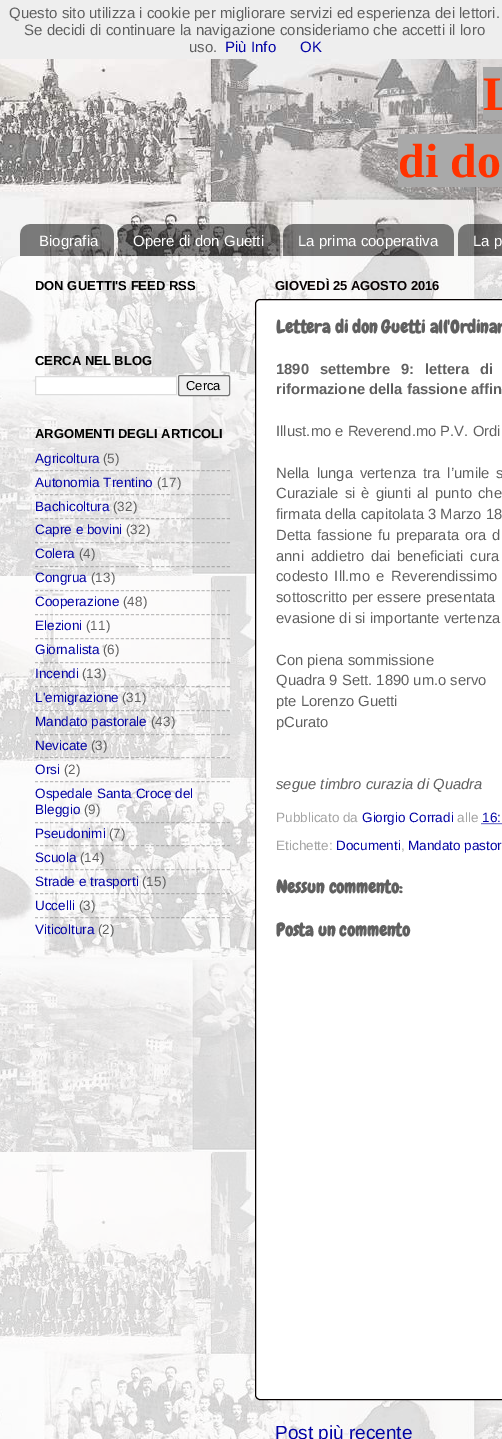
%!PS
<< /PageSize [502 1439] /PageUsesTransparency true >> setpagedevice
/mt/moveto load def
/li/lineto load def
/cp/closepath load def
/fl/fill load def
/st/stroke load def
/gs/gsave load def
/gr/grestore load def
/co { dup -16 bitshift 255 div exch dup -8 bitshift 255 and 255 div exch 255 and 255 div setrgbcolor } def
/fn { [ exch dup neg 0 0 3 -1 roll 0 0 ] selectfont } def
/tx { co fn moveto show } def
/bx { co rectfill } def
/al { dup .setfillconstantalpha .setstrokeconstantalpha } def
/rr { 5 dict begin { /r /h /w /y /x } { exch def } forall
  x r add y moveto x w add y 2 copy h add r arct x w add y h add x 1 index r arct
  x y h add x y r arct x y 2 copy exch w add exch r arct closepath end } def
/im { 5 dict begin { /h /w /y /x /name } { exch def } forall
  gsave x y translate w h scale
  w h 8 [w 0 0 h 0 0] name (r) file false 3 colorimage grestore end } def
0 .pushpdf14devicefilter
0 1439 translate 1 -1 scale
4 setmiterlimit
0 0 502 1439 16#FFFFFF bx
(media/1.raw) 0 59 502 1380 im
0 0 502 59 16#EEEEEE bx
483 67 19 53 16#A9A9A9 bx
398 134 104 53 16#A9A9A9 bx
(media/2.raw) 20 224 94 32 im
(media/3.raw) 118 224 162 32 im
(media/4.raw) 283 224 171 32 im
(media/5.raw) 458 224 44 32 im
(media/6.raw) 0 256 502 1183 im
16#FFFFFF co
35.5 376.5 mt 176.5 376.5 li 176.5 394.5 li 35.5 394.5 li cp gs fl gr
16#DDDDDD co
st
16#EFEFEF co
178.5 375.5 51 20 1.5 rr gs fl gr
16#767676 co
st
0.5 al
16#808080 co
[3 2.05] 0 setdash
35 470.5 mt 230 470.5 li st
35 494.5 mt 230 494.5 li st
35 518.5 mt 230 518.5 li st
35 542.5 mt 230 542.5 li st
35 566.5 mt 230 566.5 li st
35 590.5 mt 230 590.5 li st
35 614.5 mt 230 614.5 li st
35 638.5 mt 230 638.5 li st
35 662.5 mt 230 662.5 li st
35 686.5 mt 230 686.5 li st
35 710.5 mt 230 710.5 li st
35 734.5 mt 230 734.5 li st
35 757.5 mt 230 757.5 li st
35 781.5 mt 230 781.5 li st
35 822.5 mt 230 822.5 li st
35 845.5 mt 230 845.5 li st
35 869.5 mt 230 869.5 li st
35 893.5 mt 230 893.5 li st
35 917.5 mt 230 917.5 li st
1 al
16#FFFFFF co
255.5 299.5 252 1100 4.5 rr gs fl gr
16#060000 co
[] 0 setdash
st
16#0202A4 co
[1 1] 0 setdash
481.5 823.5 mt 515.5 823.5 li st
(Questo sito utilizza i cookie per migliorare servizi ed esperienza dei lettori.) 9 18 /LiberationSans-Regular 15 16#606060 tx
(Se decidi di continuare la navigazione consideriamo che accetti il loro) 24 35 /LiberationSans-Regular 15 16#606060 tx
(uso.) 189 52 /LiberationSans-Regular 15 16#606060 tx
(Più Info) 225 52 /LiberationSans-Regular 15 16#0202A4 tx
(OK) 300 52 /LiberationSans-Regular 15 16#0202A4 tx
(L) 483 110 /LiberationSerif-Bold 48 16#FF3300 tx
(di do) 398 177 /LiberationSerif-Bold 48 16#FF3300 tx
(Biografia) 39 246 /LiberationSans-Regular 15 16#FFFFFF tx
(Opere di don Guetti) 133 246 /LiberationSans-Regular 15 16#FFFFFF tx
(La prima cooperativa) 298 246 /LiberationSans-Regular 15 16#FFFFFF tx
(La p) 473 246 /LiberationSans-Regular 15 16#FFFFFF tx
(DON GUETTI'S FEED RSS) 35 290 /LiberationSans-Bold 13 16#000000 tx
(CERCA NEL BLOG) 35 365 /LiberationSans-Bold 13 16#000000 tx
(Cerca) 186 390 /LiberationSans-Regular 13 16#000000 tx
(ARGOMENTI DEGLI ARTICOLI) 35 438 /LiberationSans-Bold 13 16#000000 tx
(Agricoltura) 35 463 /LiberationSans-Regular 13.5 16#0202A4 tx
(\(5\)) 103 463 /LiberationSans-Regular 13.5 16#606060 tx
(Autonomia Trentino) 35 487 /LiberationSans-Regular 13.5 16#0202A4 tx
(\(17\)) 157 487 /LiberationSans-Regular 13.5 16#606060 tx
(Bachicoltura) 35 511 /LiberationSans-Regular 13.5 16#0202A4 tx
(\(32\)) 113 511 /LiberationSans-Regular 13.5 16#606060 tx
(Capre e bovini) 35 534 /LiberationSans-Regular 13.5 16#0202A4 tx
(\(32\)) 126 534 /LiberationSans-Regular 13.5 16#606060 tx
(Colera) 35 558 /LiberationSans-Regular 13.5 16#0202A4 tx
(\(4\)) 79 558 /LiberationSans-Regular 13.5 16#606060 tx
(Congrua) 35 582 /LiberationSans-Regular 13.5 16#0202A4 tx
(\(13\)) 91 582 /LiberationSans-Regular 13.5 16#606060 tx
(Cooperazione) 35 606 /LiberationSans-Regular 13.5 16#0202A4 tx
(\(48\)) 123 606 /LiberationSans-Regular 13.5 16#606060 tx
(Elezioni) 35 630 /LiberationSans-Regular 13.5 16#0202A4 tx
(\(11\)) 86 630 /LiberationSans-Regular 13.5 16#606060 tx
(Giornalista) 35 654 /LiberationSans-Regular 13.5 16#0202A4 tx
(\(6\)) 103 654 /LiberationSans-Regular 13.5 16#606060 tx
(Incendi) 35 678 /LiberationSans-Regular 13.5 16#0202A4 tx
(\(13\)) 82 678 /LiberationSans-Regular 13.5 16#606060 tx
(L'emigrazione) 35 702 /LiberationSans-Regular 13.5 16#0202A4 tx
(\(31\)) 122 702 /LiberationSans-Regular 13.5 16#606060 tx
(Mandato pastorale) 35 726 /LiberationSans-Regular 13.5 16#0202A4 tx
(\(43\)) 151 726 /LiberationSans-Regular 13.5 16#606060 tx
(Nevicate) 35 750 /LiberationSans-Regular 13.5 16#0202A4 tx
(\(3\)) 91 750 /LiberationSans-Regular 13.5 16#606060 tx
(Orsi) 35 774 /LiberationSans-Regular 13.5 16#0202A4 tx
(\(2\)) 64 774 /LiberationSans-Regular 13.5 16#606060 tx
(Ospedale Santa Croce del) 35 798 /LiberationSans-Regular 13.5 16#0202A4 tx
(Bleggio) 35 814 /LiberationSans-Regular 13.5 16#0202A4 tx
(\(9\)) 84 814 /LiberationSans-Regular 13.5 16#606060 tx
(Pseudonimi) 35 838 /LiberationSans-Regular 13.5 16#0202A4 tx
(\(7\)) 109 838 /LiberationSans-Regular 13.5 16#606060 tx
(Scuola) 35 862 /LiberationSans-Regular 13.5 16#0202A4 tx
(\(14\)) 80 862 /LiberationSans-Regular 13.5 16#606060 tx
(Strade e trasporti) 35 886 /LiberationSans-Regular 13.5 16#0202A4 tx
(\(15\)) 142 886 /LiberationSans-Regular 13.5 16#606060 tx
(Uccelli) 35 910 /LiberationSans-Regular 13.5 16#0202A4 tx
(\(3\)) 79 910 /LiberationSans-Regular 13.5 16#606060 tx
(Viticoltura) 35 934 /LiberationSans-Regular 13.5 16#0202A4 tx
(\(2\)) 98 934 /LiberationSans-Regular 13.5 16#606060 tx
(GIOVEDÌ 25 AGOSTO 2016) 275 290 /LiberationSans-Bold 13 16#060000 tx
(Lettera di don Guetti all'Ordinar) 276 333 /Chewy-Bold 18 16#606060 tx
/LiberationSans-Bold 14.8 fn
276 374 mt 6.5 0 32 (1890 settembre 9: lettera di) widthshow
(riformazione della fassione affin) 276 394 /LiberationSans-Bold 14.8 16#606060 tx
(Illust.mo e Reverend.mo P.V. Ordi) 276 436 /LiberationSans-Regular 14.8 16#606060 tx
276 478 mt 2.75 0 32 (Nella lunga vertenza tra l’umile s) widthshow
276 498 mt 2 0 32 (Curaziale si è giunti al punto che) widthshow
(firmata della capitolata 3 Marzo 18) 276 519 /LiberationSans-Regular 14.8 16#606060 tx
276 540 mt 1.5 0 32 (Detta fassione fu preparata ora d) widthshow
276 561 mt 2.5 0 32 (anni addietro dai beneficiati cura) widthshow
276 581 mt 2.5 0 32 (codesto Ill.mo e Reverendissimo) widthshow
(sottoscritto per essere presentata) 276 602 /LiberationSans-Regular 14.8 16#606060 tx
(evasione di si importante vertenza) 276 623 /LiberationSans-Regular 14.8 16#606060 tx
(Con piena sommissione) 276 665 /LiberationSans-Regular 14.8 16#606060 tx
(Quadra 9 Sett. 1890 um.o servo) 276 685 /LiberationSans-Regular 14.8 16#606060 tx
(pte Lorenzo Guetti) 276 706 /LiberationSans-Regular 14.8 16#606060 tx
(pCurato) 276 727 /LiberationSans-Regular 14.8 16#606060 tx
(segue timbro curazia di Quadra) 276 789 /LiberationSans-Italic 14.8 16#606060 tx
(Pubblicato da) 276 822 /LiberationSans-Regular 13.5 16#A3A3A3 tx
(Giorgio Corradi) 362 822 /LiberationSans-Regular 13.5 16#0202A4 tx
(alle) 457 822 /LiberationSans-Regular 13.5 16#A3A3A3 tx
(16:) 482 822 /LiberationSans-Regular 13.5 16#0202A4 tx
(Etichette:) 276 850 /LiberationSans-Regular 13.5 16#A3A3A3 tx
(Documenti) 336 850 /LiberationSans-Regular 13.5 16#0202A4 tx
(,) 401 850 /LiberationSans-Regular 13.5 16#A3A3A3 tx
(Mandato pastor) 408 850 /LiberationSans-Regular 13.5 16#0202A4 tx
(Nessun commento:) 276 893 /Chewy-Bold 18 16#606060 tx
(Posta un commento) 276 936 /Chewy-Bold 18 16#606060 tx
(Post più recente) 275 1439 /LiberationSans-Regular 19 16#0202A4 tx
.poppdf14devicefilter showpage
